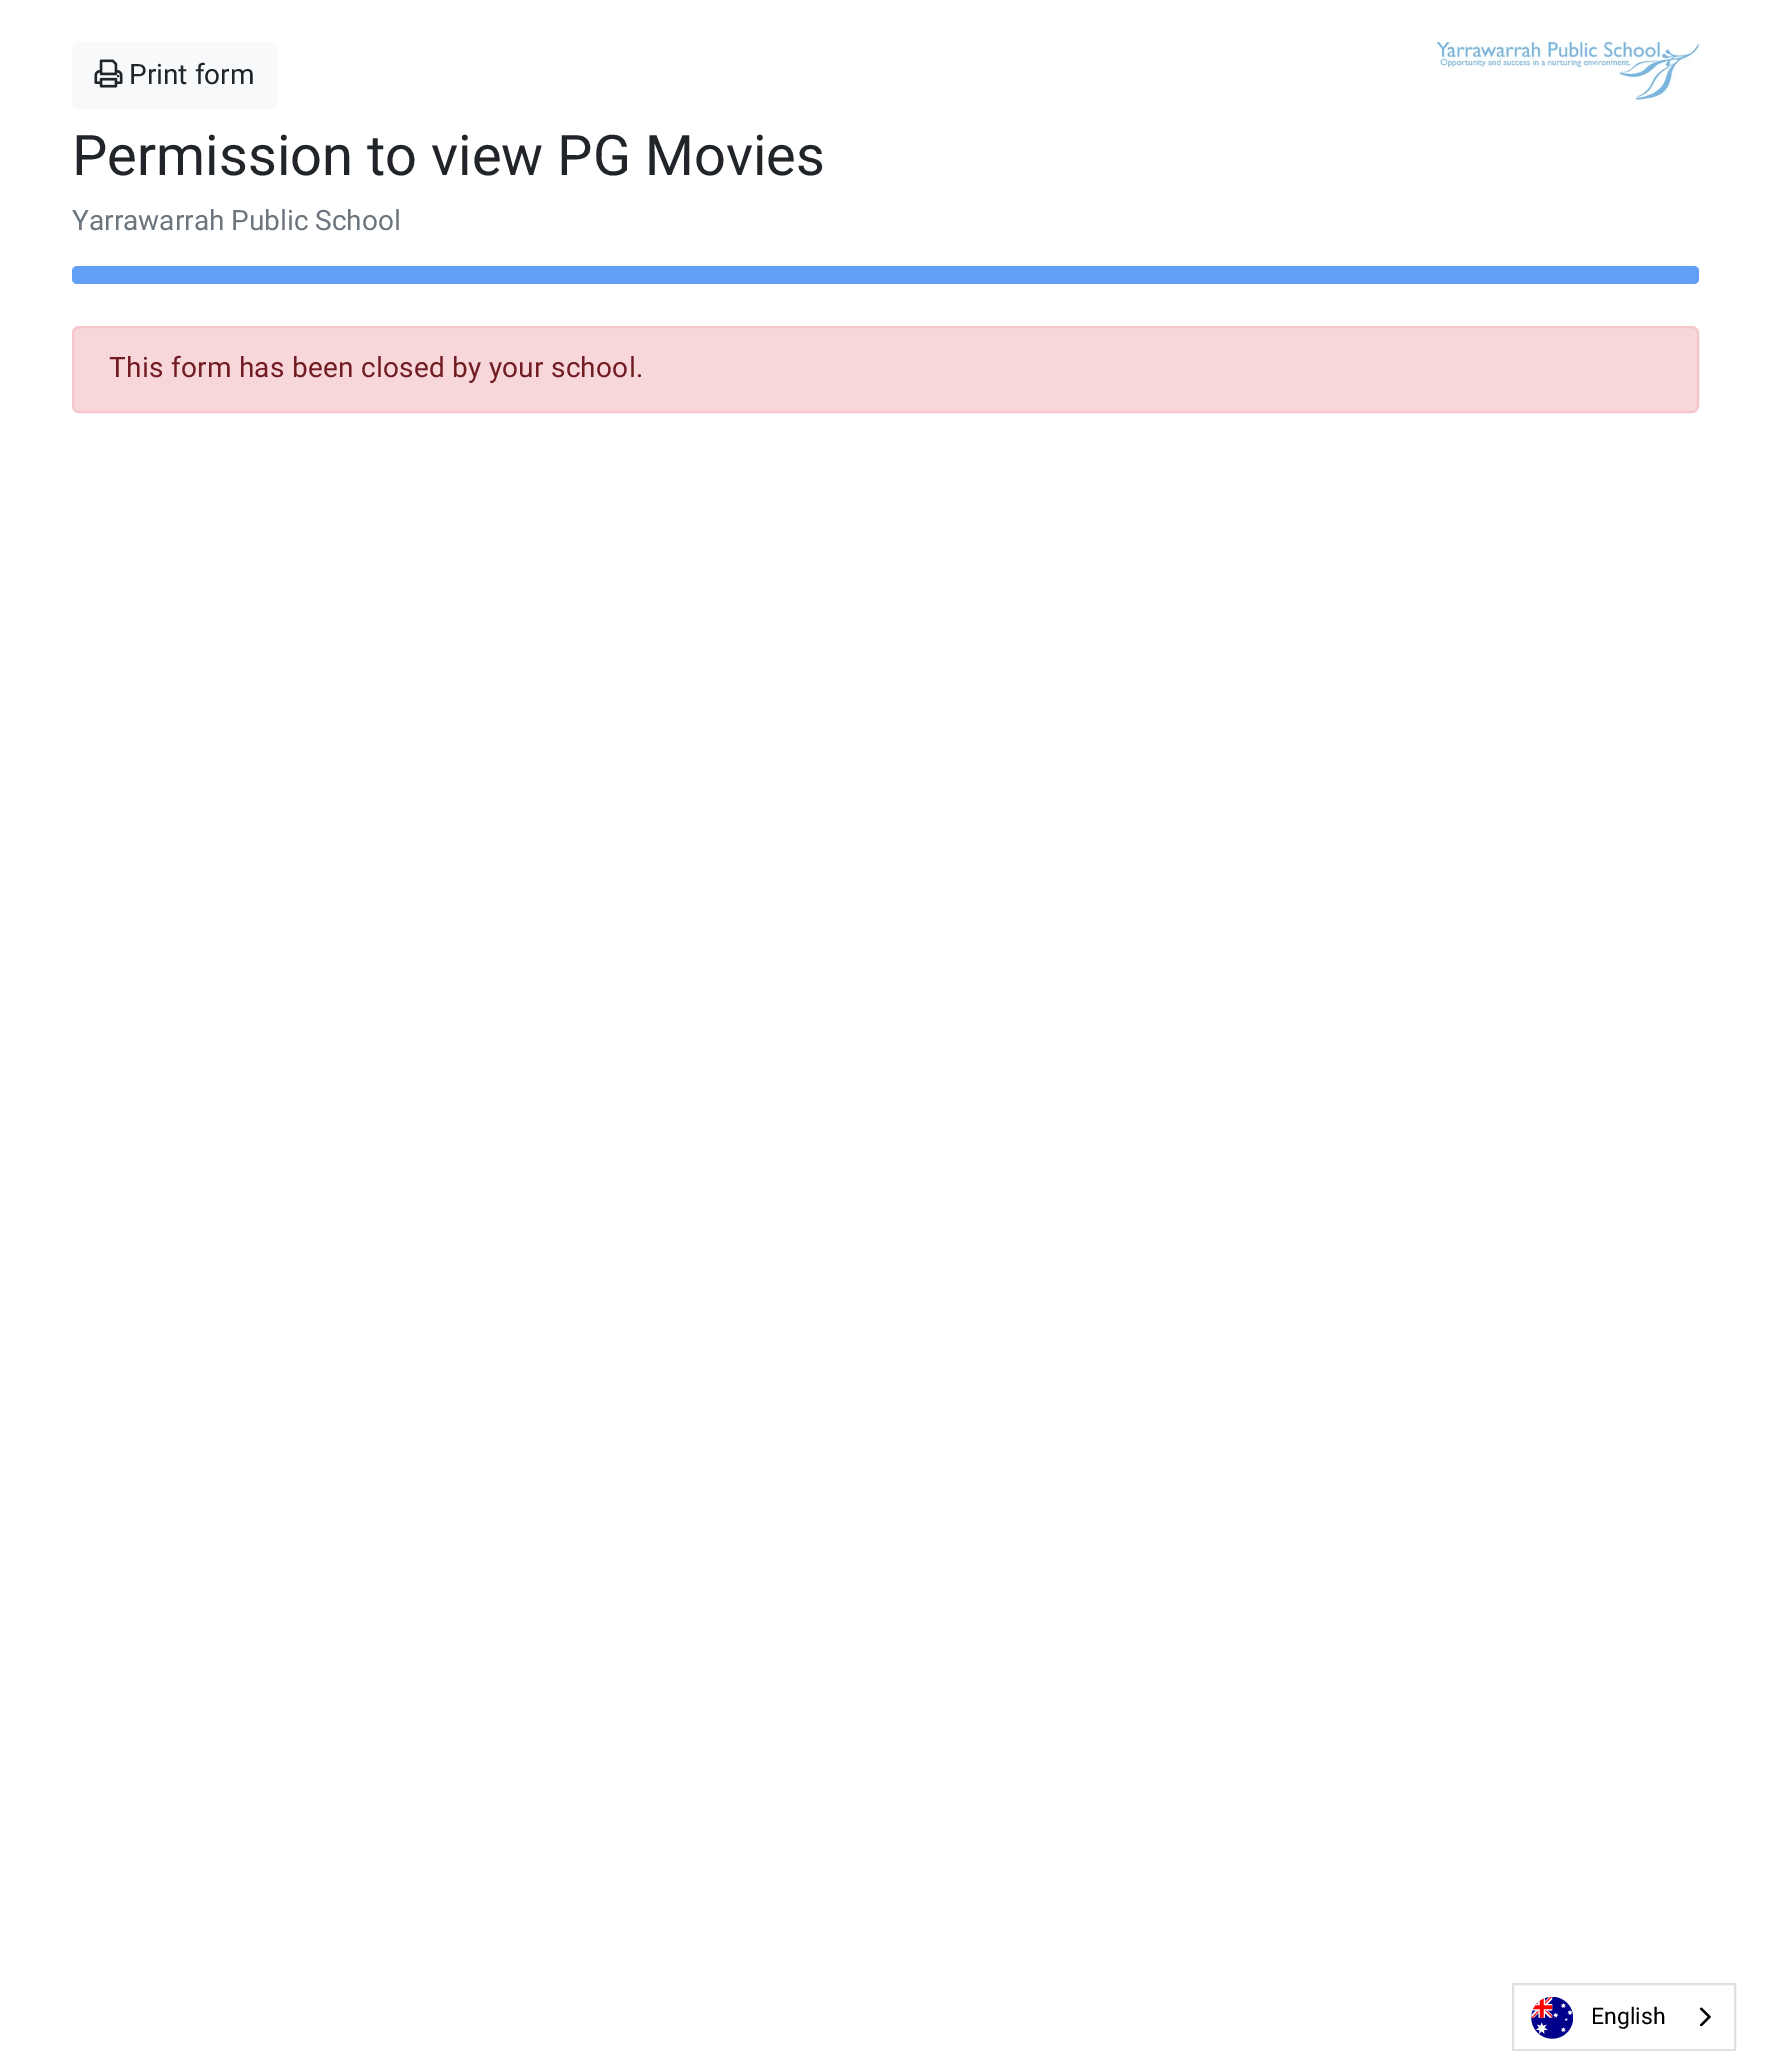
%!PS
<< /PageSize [1770 2051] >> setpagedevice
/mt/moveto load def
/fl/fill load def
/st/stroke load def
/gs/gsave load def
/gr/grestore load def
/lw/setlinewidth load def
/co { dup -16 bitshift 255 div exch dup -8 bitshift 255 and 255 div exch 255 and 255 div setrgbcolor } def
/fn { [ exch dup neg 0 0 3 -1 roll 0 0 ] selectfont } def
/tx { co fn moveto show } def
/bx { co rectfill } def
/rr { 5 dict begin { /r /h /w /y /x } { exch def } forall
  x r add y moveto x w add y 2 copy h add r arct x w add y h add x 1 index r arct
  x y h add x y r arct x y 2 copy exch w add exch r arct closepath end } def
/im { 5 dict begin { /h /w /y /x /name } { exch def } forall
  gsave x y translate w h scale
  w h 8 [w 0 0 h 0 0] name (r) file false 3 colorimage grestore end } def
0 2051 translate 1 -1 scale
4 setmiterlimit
0 0 1770 2051 16#FFFFFF bx
16#F8F9FA co
72 42 206 67 7 rr fl
(media/1.raw) 94 59 29 29 im
(media/2.raw) 1436 42 264 58 im
16#629FF7 co
72 266 1627 18 5 rr fl
16#F8D7DA co
73 327 1625 85 6 rr gs fl gr
16#F5C6CB co
2 lw
st
16#E0E0E0 co
1513 1984 222 66 rectstroke
(media/3.raw) 1531 1997 42 42 im
(media/4.raw) 1699 2007 12 20 im
(Print form) 129 84 /Roboto-Regular 28 16#212529 tx
(Permission to view PG Movies) 72 175 /Roboto-Regular 56 16#212529 tx
(Yarrawarrah Public School) 72 230 /Roboto-Regular 28 16#6C757D tx
16#721C24 co
109 377 mt .25 0 (This form has been closed by your school.) ashow
(English) 1591 2024 /Roboto-Regular 23 16#000000 tx
showpage
